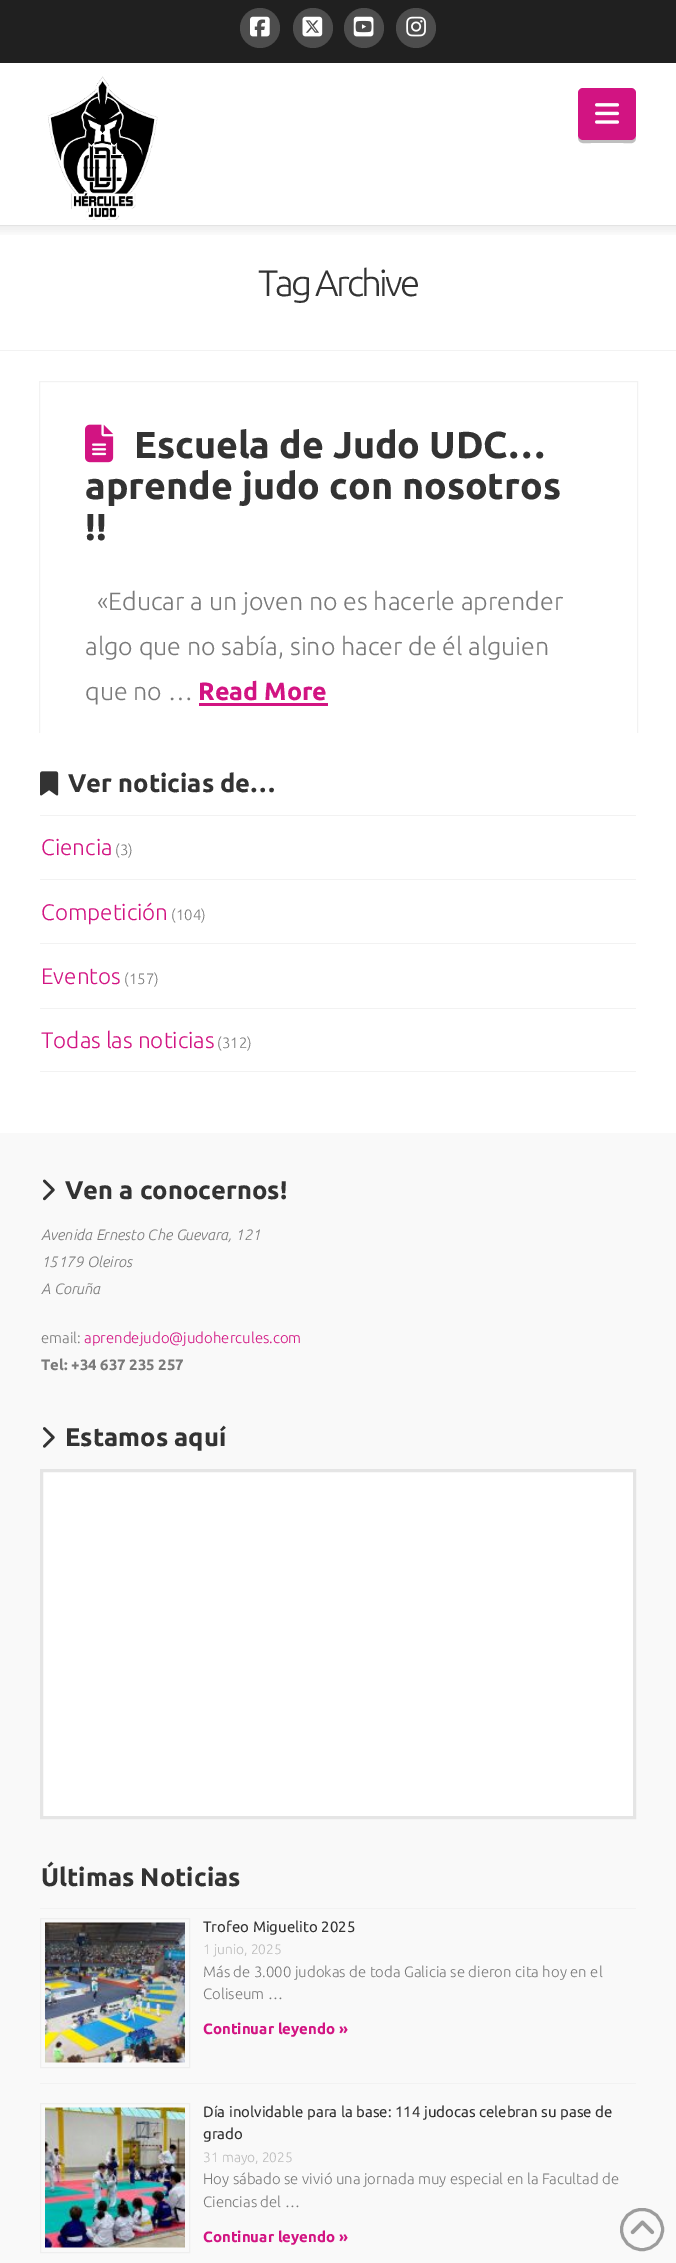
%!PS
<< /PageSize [676 2263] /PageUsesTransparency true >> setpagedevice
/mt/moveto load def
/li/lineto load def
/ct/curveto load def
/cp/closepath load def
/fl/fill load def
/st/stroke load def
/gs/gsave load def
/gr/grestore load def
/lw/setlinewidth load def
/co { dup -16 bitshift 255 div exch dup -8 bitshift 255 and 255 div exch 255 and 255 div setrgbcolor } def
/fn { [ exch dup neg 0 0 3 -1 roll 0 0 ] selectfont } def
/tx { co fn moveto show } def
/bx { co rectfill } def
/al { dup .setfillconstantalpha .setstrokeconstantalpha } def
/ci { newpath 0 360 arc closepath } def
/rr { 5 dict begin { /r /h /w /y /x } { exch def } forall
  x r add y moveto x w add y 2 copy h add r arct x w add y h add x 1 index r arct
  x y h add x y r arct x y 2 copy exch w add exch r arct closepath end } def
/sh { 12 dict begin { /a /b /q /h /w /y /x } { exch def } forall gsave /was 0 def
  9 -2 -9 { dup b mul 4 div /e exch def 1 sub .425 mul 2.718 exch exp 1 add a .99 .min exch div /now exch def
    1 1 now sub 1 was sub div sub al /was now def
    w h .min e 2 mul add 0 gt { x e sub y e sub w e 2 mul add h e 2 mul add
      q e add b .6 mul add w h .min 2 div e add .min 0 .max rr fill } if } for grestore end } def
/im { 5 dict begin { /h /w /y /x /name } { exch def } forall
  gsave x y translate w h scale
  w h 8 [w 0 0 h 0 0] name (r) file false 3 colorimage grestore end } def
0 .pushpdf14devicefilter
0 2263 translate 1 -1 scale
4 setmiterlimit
0 0 676 2263 16#FFFFFF bx
0 225 676 1 16#F2F2F2 bx
gs
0 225 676 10 rectclip
16#444444 co
-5 59 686 172 0 5 .1 sh
gr
0 0 676 63 16#202020 bx
16#4D4D4D co
260 28 20 ci fl
(media/1.raw) 250 16 20 21 im
313 28 20 ci fl
(media/2.raw) 302 16 21 21 im
364 28 20 ci fl
(media/3.raw) 353 16 21 21 im
416 28 20 ci fl
(media/4.raw) 406 16 20 21 im
(media/5.raw) 47 76 111 144 im
16#BFBFBF co
578 137 mt 578 145 586 143 591 143 ct 623 143 li 630 143 636 145 636 137 ct 635 139 633 140 631 140 ct 582 140 li 581 140 579 139 578 137 ct cp fl
16#D21482 co
578 88 58 52 5 rr fl
(media/6.raw) 595 103 25 21 im
0 350 676 1 16#F2F2F2 bx
gs
25 366 626 367 rectclip
39.5 381.5 598 378 rectstroke
gr
(media/7.raw) 85 424 29 39 im
199 703 129 3 16#D21482 bx
(media/8.raw) 40 771 19 25 im
40 1071 596 1 16#F2F2F2 bx
40 815 596 1 16#F2F2F2 bx
40 879 596 1 16#F2F2F2 bx
40 943 596 1 16#F2F2F2 bx
40 1008 596 1 16#F2F2F2 bx
0 1133 676 1130 16#F9F9F9 bx
(media/9.raw) 43 1179 12 22 im
(media/10.raw) 43 1427 12 21 im
16#FFFFFF co
41.5 1470.5 mt 634.5 1470.5 li 634.5 1817.5 li 41.5 1817.5 li cp gs fl gr
16#E5E5E5 co
3 lw
st
40 1908 596 1 16#F2F2F2 bx
40 2083 596 1 16#F2F2F2 bx
16#EEEEEE co
1 lw
40.5 1918.5 149 149 rectstroke
(media/11.raw) 45 1922 140 141 im
40.5 2103.5 149 149 rectstroke
(media/12.raw) 45 2107 140 141 im
16#9C9C9C co
3 lw
621.5 2209.5 41 40 20 rr st
(media/13.raw) 630 2220 25 15 im
/Ubuntu-Light 36.75 fn
16#333333 co
258 296 mt -2.75 0 (Tag Archive) ashow
(Escuela de Judo UDC…) 134 458 /Ubuntu-Bold 37.5 16#333333 tx
(aprende judo con nosotros) 85 499 /Ubuntu-Bold 37.5 16#333333 tx
(!!) 85 540 /Ubuntu-Bold 37.5 16#333333 tx
(«Educar a un joven no es hacerle aprender) 97 610 /Ubuntu-Light 25 16#7A7A7A tx
(algo que no sabía, sino hacer de él alguien) 85 655 /Ubuntu-Light 25 16#7A7A7A tx
(que no …) 85 700 /Ubuntu-Light 25 16#7A7A7A tx
(Read More) 198 700 /Ubuntu-Bold 25 16#D21482 tx
(Ver noticias de…) 68 792 /Ubuntu-Bold 25.5 16#333333 tx
(Ciencia) 41 855 /Ubuntu-Light 22.5 16#D21482 tx
(\(3\)) 115 855 /Ubuntu-Light 15 16#7A7A7A tx
(Competición) 41 920 /Ubuntu-Light 22.5 16#D21482 tx
(\(104\)) 171 920 /Ubuntu-Light 15 16#7A7A7A tx
(Eventos) 41 984 /Ubuntu-Light 22.5 16#D21482 tx
(\(157\)) 124 984 /Ubuntu-Light 15 16#7A7A7A tx
(Todas las noticias) 41 1048 /Ubuntu-Light 22.5 16#D21482 tx
(\(312\)) 217 1048 /Ubuntu-Light 15 16#7A7A7A tx
(Ven a conocernos!) 65 1199 /Ubuntu-Bold 25.5 16#333333 tx
(Avenida Ernesto Che Guevara, 121) 41 1240 /Ubuntu-LightItalic 15 16#7A7A7A tx
(15179 Oleiros) 41 1267 /Ubuntu-LightItalic 15 16#7A7A7A tx
(A Coruña) 41 1294 /Ubuntu-LightItalic 15 16#7A7A7A tx
(email:) 41 1343 /Ubuntu-Light 15 16#7A7A7A tx
(aprendejudo@judohercules.com) 84 1343 /Ubuntu-Light 15 16#D21482 tx
(Tel: +34 637 235 257) 41 1370 /Ubuntu-Bold 15 16#7A7A7A tx
(Estamos aquí) 65 1446 /Ubuntu-Bold 25.5 16#333333 tx
(Últimas Noticias) 41 1886 /Ubuntu-Bold 25.5 16#333333 tx
(Trofeo Miguelito 2025) 203 1932 /Ubuntu-Regular 15 16#333333 tx
(1 junio, 2025) 203 1954 /Ubuntu-Light 13.75 16#BBBBBB tx
(Más de 3.000 judokas de toda Galicia se dieron cita hoy en el) 203 1977 /Ubuntu-Light 15 16#7A7A7A tx
(Coliseum …) 203 1999 /Ubuntu-Light 15 16#7A7A7A tx
(Continuar leyendo ») 203 2034 /Ubuntu-Bold 15 16#D21482 tx
(Día inolvidable para la base: 114 judocas celebran su pase de) 203 2117 /Ubuntu-Regular 15 16#333333 tx
(grado) 203 2139 /Ubuntu-Regular 15 16#333333 tx
(31 mayo, 2025) 203 2162 /Ubuntu-Light 13.75 16#BBBBBB tx
(Hoy sábado se vivió una jornada muy especial en la Facultad de) 203 2184 /Ubuntu-Light 15 16#7A7A7A tx
(Ciencias del …) 203 2207 /Ubuntu-Light 15 16#7A7A7A tx
(Continuar leyendo ») 203 2242 /Ubuntu-Bold 15 16#D21482 tx
.poppdf14devicefilter showpage
